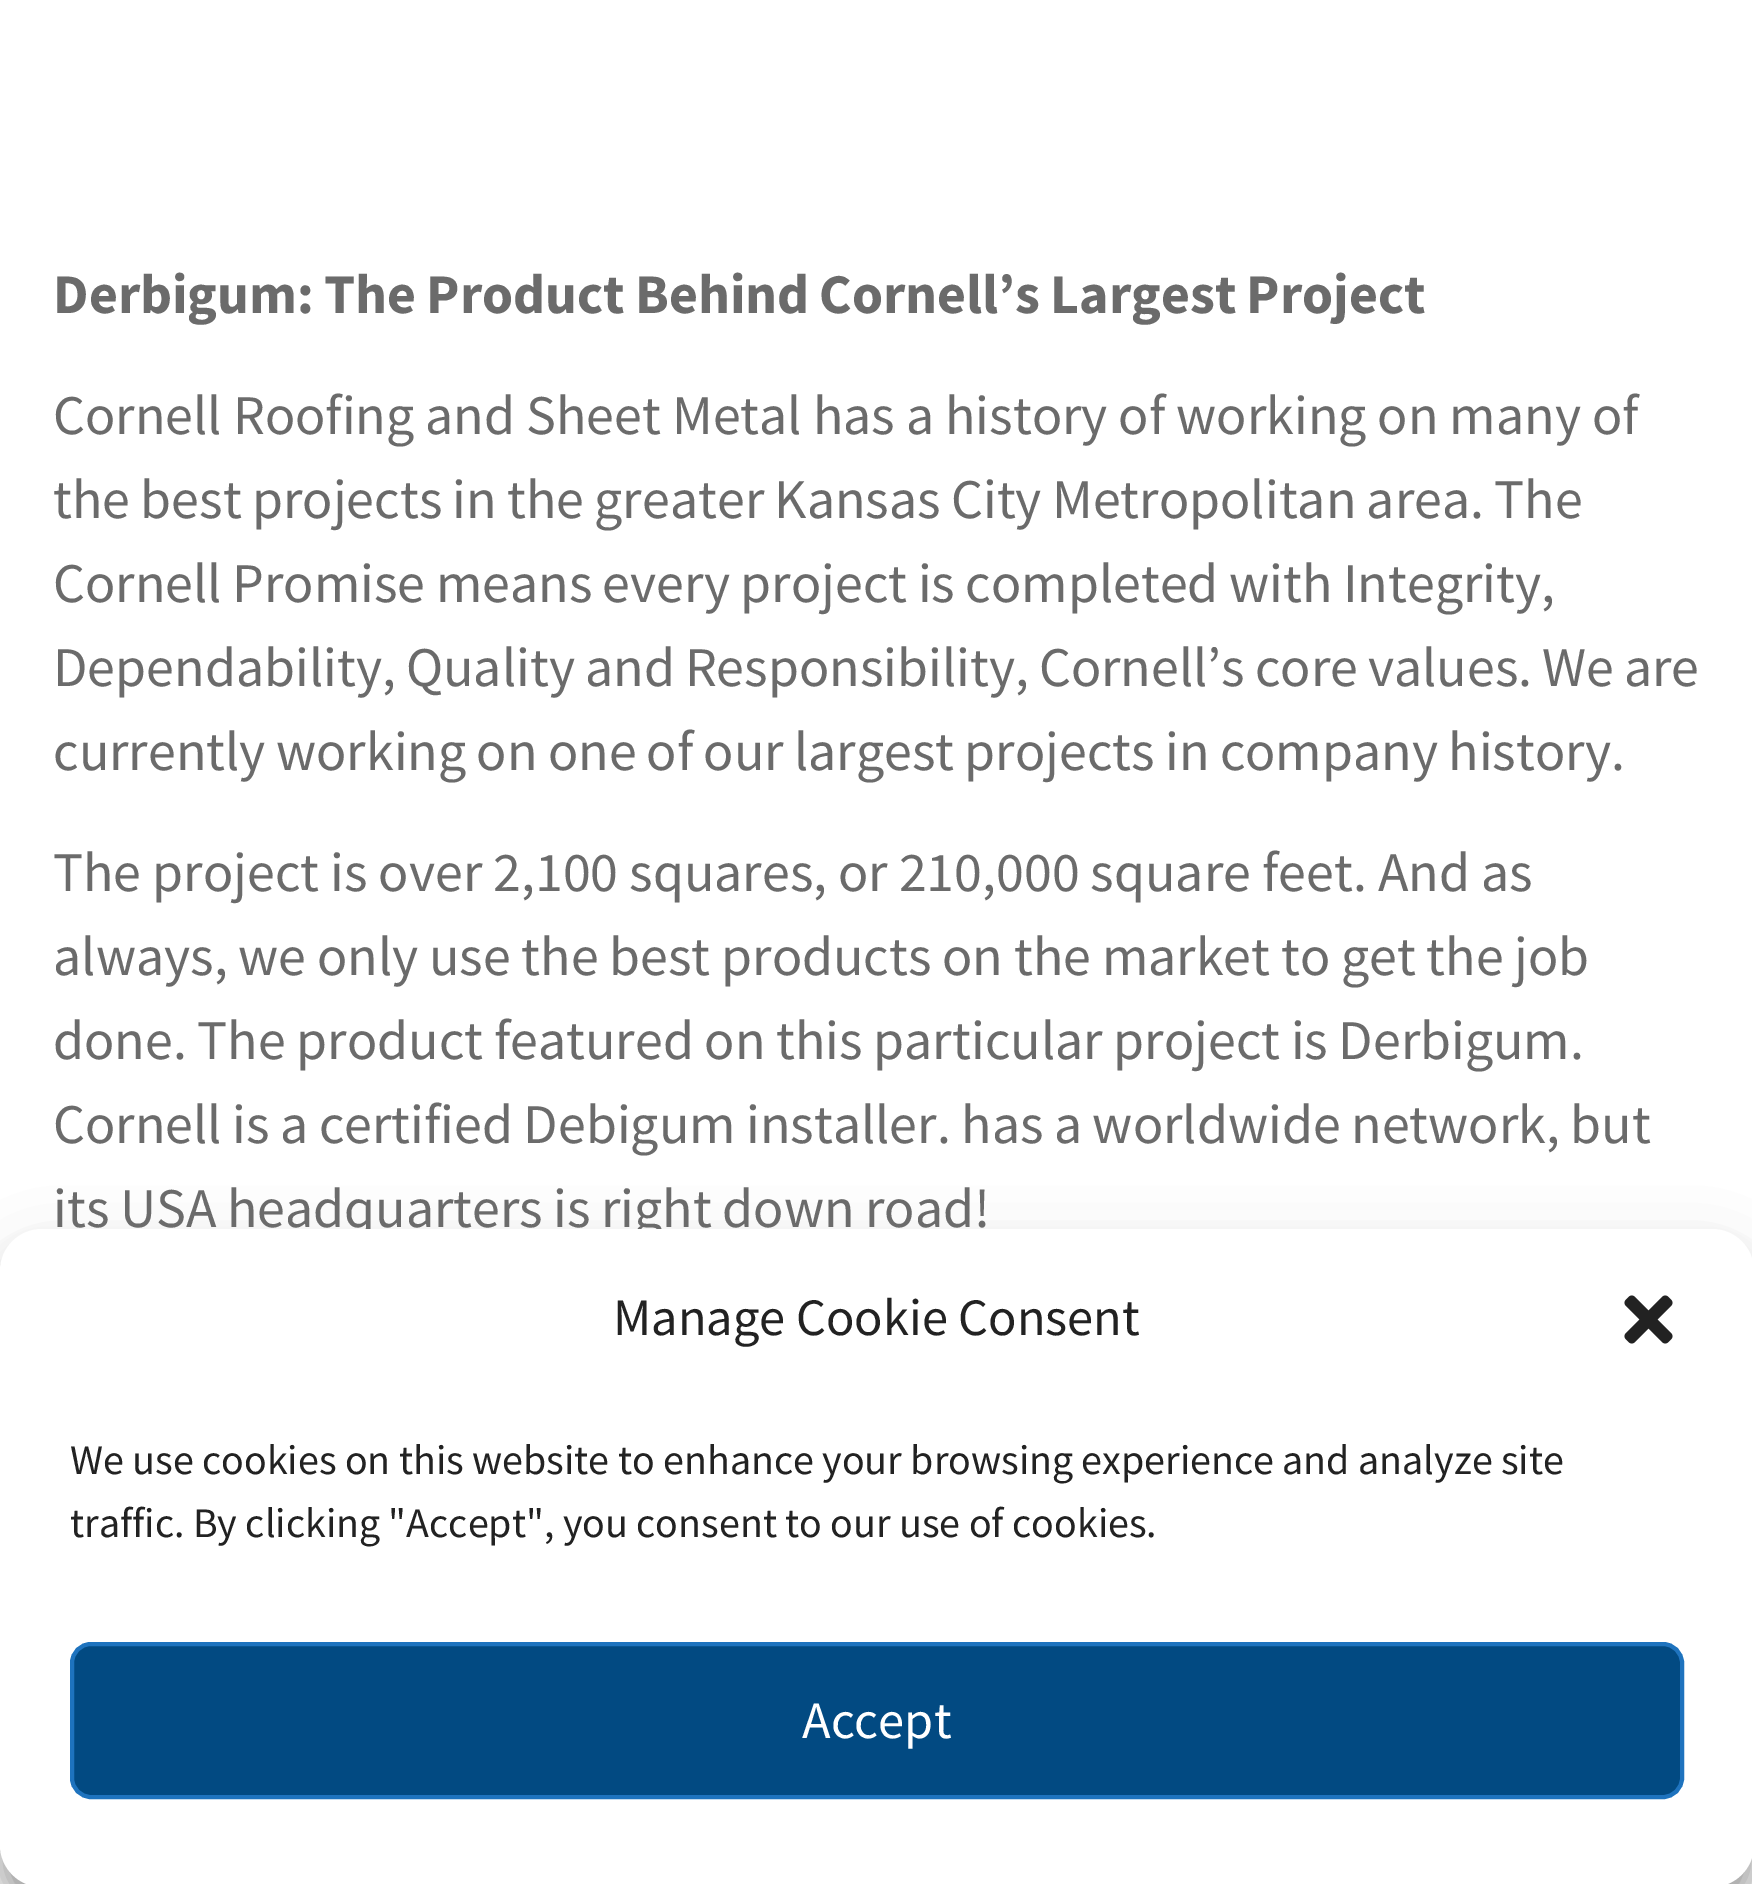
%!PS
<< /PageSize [1752 1884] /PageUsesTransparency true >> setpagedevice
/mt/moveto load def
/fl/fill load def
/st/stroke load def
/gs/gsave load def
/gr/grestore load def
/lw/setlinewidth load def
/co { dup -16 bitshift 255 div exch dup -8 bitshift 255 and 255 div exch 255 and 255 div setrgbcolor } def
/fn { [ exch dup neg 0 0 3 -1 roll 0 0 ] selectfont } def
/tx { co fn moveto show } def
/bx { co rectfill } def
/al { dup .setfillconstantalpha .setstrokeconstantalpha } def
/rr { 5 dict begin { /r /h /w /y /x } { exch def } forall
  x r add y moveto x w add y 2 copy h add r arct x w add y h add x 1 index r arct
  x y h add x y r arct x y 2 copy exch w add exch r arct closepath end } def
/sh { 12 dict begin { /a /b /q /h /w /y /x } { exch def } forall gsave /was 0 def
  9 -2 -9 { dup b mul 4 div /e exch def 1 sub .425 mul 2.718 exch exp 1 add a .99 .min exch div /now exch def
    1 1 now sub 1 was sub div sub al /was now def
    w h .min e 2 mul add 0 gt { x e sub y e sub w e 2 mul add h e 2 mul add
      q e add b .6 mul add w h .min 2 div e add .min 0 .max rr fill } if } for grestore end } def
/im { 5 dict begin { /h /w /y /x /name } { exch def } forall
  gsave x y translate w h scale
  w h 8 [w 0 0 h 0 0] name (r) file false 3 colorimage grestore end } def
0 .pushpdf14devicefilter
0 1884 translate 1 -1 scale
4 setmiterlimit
0 0 1752 1884 16#FFFFFF bx
16#000000 co
0 1250 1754 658 42 10.5 .23 sh
0 1264 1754 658 42 35 .19 sh
/SourceSansPro-Bold 56 fn
16#6B6B6B co
53 313 mt -1 0 32 (Derbigum: The Product Behind Cornell’s Largest Project) widthshow
/SourceSansPro-Regular 56 fn
53 434 mt -.25 0 32 (Cornell Roofing and Sheet Metal has a history of working on many of) widthshow
53 518 mt -1 0 32 (the best projects in the greater Kansas City Metropolitan area. The) widthshow
53 602 mt -.75 0 32 (Cornell Promise means every project is completed with Integrity,) widthshow
53 686 mt -1.25 0 32 (Dependability, Quality and Responsibility, Cornell’s core values. We are) widthshow
53 770 mt -1 0 32 (currently working on one of our largest projects in company history.) widthshow
53 891 mt -.25 0 32 (The project is over 2,100 squares, or 210,000 square feet. And as) widthshow
53 975 mt -.5 0 32 (always, we only use the best products on the market to get the job) widthshow
53 1059 mt -.6 0 32 (done. The product featured on this particular project is Derbigum.) widthshow
53 1143 mt -.75 0 32 (Cornell is a certified Debigum installer. has a worldwide network, but) widthshow
53 1227 mt -.75 0 32 (its USA headquarters is right down road!) widthshow
16#FFFFFF co
0 1229 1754 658 42 rr fl
(Manage Cookie Consent) 613 1335 /SourceSansPro-Regular 52.5 16#222222 tx
(media/1.raw) 1624 1295 49 49 im
(We use cookies on this website to enhance your browsing experience and analyze site) 70 1474 /SourceSansPro-Regular 42 16#222222 tx
(traffic. By clicking "Accept", you consent to our use of cookies.) 70 1537 /SourceSansPro-Regular 42 16#222222 tx
16#024A82 co
72 1644 1610 153 19 rr gs fl gr
16#1E73BE co
4 lw
st
(Accept) 802 1738 /SourceSansPro-Regular 52.5 16#FFFFFF tx
.poppdf14devicefilter showpage
